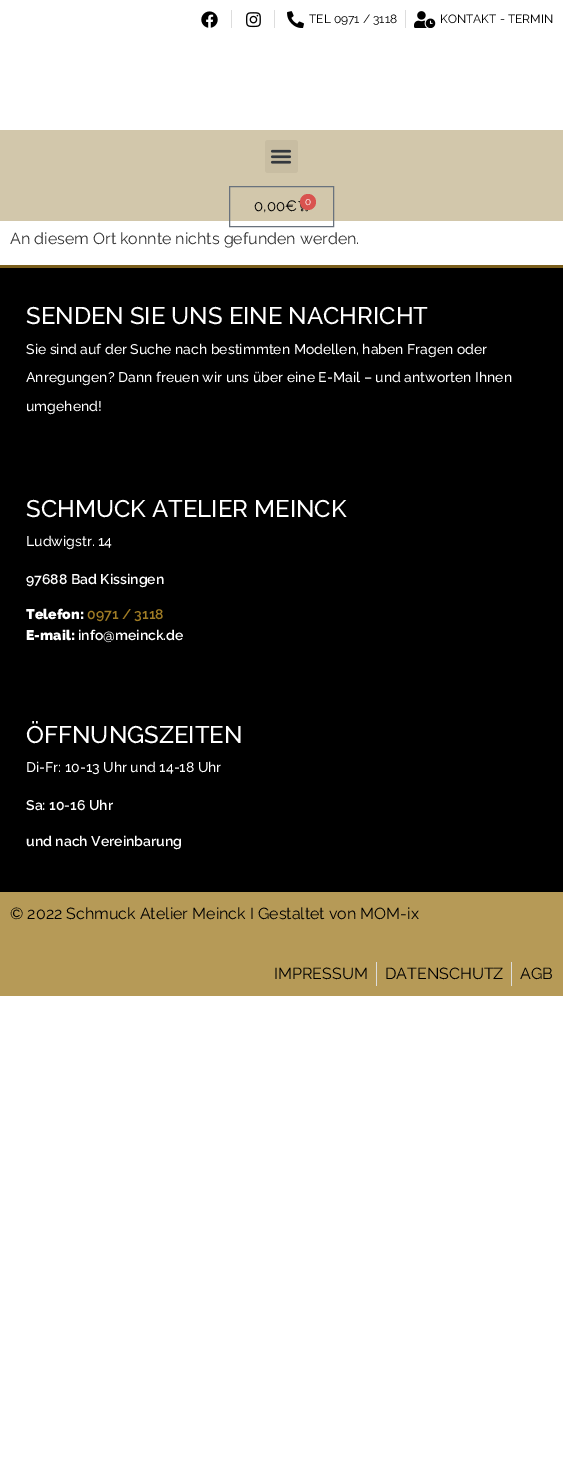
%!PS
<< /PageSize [563 1464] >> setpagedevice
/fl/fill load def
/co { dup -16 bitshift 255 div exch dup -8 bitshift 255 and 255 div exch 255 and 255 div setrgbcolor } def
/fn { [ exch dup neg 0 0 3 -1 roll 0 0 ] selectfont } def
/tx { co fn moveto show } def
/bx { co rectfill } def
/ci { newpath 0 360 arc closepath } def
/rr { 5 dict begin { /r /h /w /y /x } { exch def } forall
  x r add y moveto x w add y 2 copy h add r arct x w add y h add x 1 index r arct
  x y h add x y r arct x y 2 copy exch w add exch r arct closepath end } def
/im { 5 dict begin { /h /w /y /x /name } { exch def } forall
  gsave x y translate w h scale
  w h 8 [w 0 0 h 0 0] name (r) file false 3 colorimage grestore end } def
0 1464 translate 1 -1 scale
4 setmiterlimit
0 0 563 1464 16#FFFFFF bx
(media/1.raw) 201 11 17 17 im
231 10 1 18 16#DDDDDD bx
(media/2.raw) 246 12 15 16 im
274 10 1 18 16#DDDDDD bx
(media/3.raw) 287 11 17 17 im
405 10 1 18 16#DDDDDD bx
(media/4.raw) 414 11 22 17 im
0 130 563 91 16#D2C7AB bx
16#C8BDA2 co
265 140 33 33 3 rr fl
(media/5.raw) 270 149 22 15 im
16#69727D co
229.5 186.5 104 40 rectstroke
(media/6.raw) 298 201 10 11 im
16#D9534F co
308 202 8 ci fl
0 268 563 624 16#000000 bx
0 265 563 3 16#7B5F1C bx
0 892 563 104 16#B69A57 bx
376 962 1 24 16#DDDDDD bx
511 962 1 24 16#DDDDDD bx
(TEL 0971 / 3118) 309 23 /Raleway-Regular 12 16#000000 tx
(KONTAKT - TERMIN) 440 23 /Raleway-Regular 12 16#000000 tx
(0,00€) 254 211 /Raleway-Regular 15 16#000000 tx
(0) 305 205 /Raleway-Regular 10 16#FFFFFF tx
(An diesem Ort konnte nichts gefunden werden.) 10 244 /Raleway-Regular 16 16#333333 tx
(SENDEN SIE UNS EINE NACHRICHT) 26 324 /Raleway-Medium 24 16#FFFFFF tx
(Sie sind auf der Suche nach bestimmten Modellen, haben Fragen oder) 26 354 /Raleway-Medium 14 16#FFFFFF tx
(Anregungen? Dann freuen wir uns über eine E-Mail – und antworten Ihnen) 26 382 /Raleway-Medium 14 16#FFFFFF tx
(umgehend!) 26 411 /Raleway-Medium 14 16#FFFFFF tx
(SCHMUCK ATELIER MEINCK) 26 517 /Raleway-Medium 24 16#FFFFFF tx
(Ludwigstr. 14) 26 546 /Raleway-Medium 14 16#FFFFFF tx
(97688 Bad Kissingen) 26 584 /Raleway-SemiBold 14 16#FFFFFF tx
(Telefon:) 26 619 /Raleway-Black 14 16#FFFFFF tx
(0971 / 3118) 87 619 /Raleway-SemiBold 14 16#A07C25 tx
(E-mail:) 26 640 /Raleway-Black 14 16#FFFFFF tx
(info@meinck.de) 78 640 /Raleway-SemiBold 14 16#FFFFFF tx
(ÖFFNUNGSZEITEN) 26 743 /Raleway-Medium 24 16#FFFFFF tx
(Di-Fr: 10-13 Uhr und 14-18 Uhr) 26 772 /Raleway-Medium 14 16#FFFFFF tx
(Sa: 10-16 Uhr) 26 810 /Raleway-SemiBold 14 16#FFFFFF tx
(und nach Vereinbarung) 26 846 /Raleway-SemiBold 14 16#FFFFFF tx
(© 2022 Schmuck Atelier Meinck I Gestaltet von MOM-ix) 10 919 /Raleway-Regular 16 16#000000 tx
(IMPRESSUM) 274 979 /Raleway-Regular 16 16#000000 tx
(DATENSCHUTZ) 385 979 /Raleway-Regular 16 16#000000 tx
(AGB) 520 979 /Raleway-Regular 16 16#000000 tx
showpage
